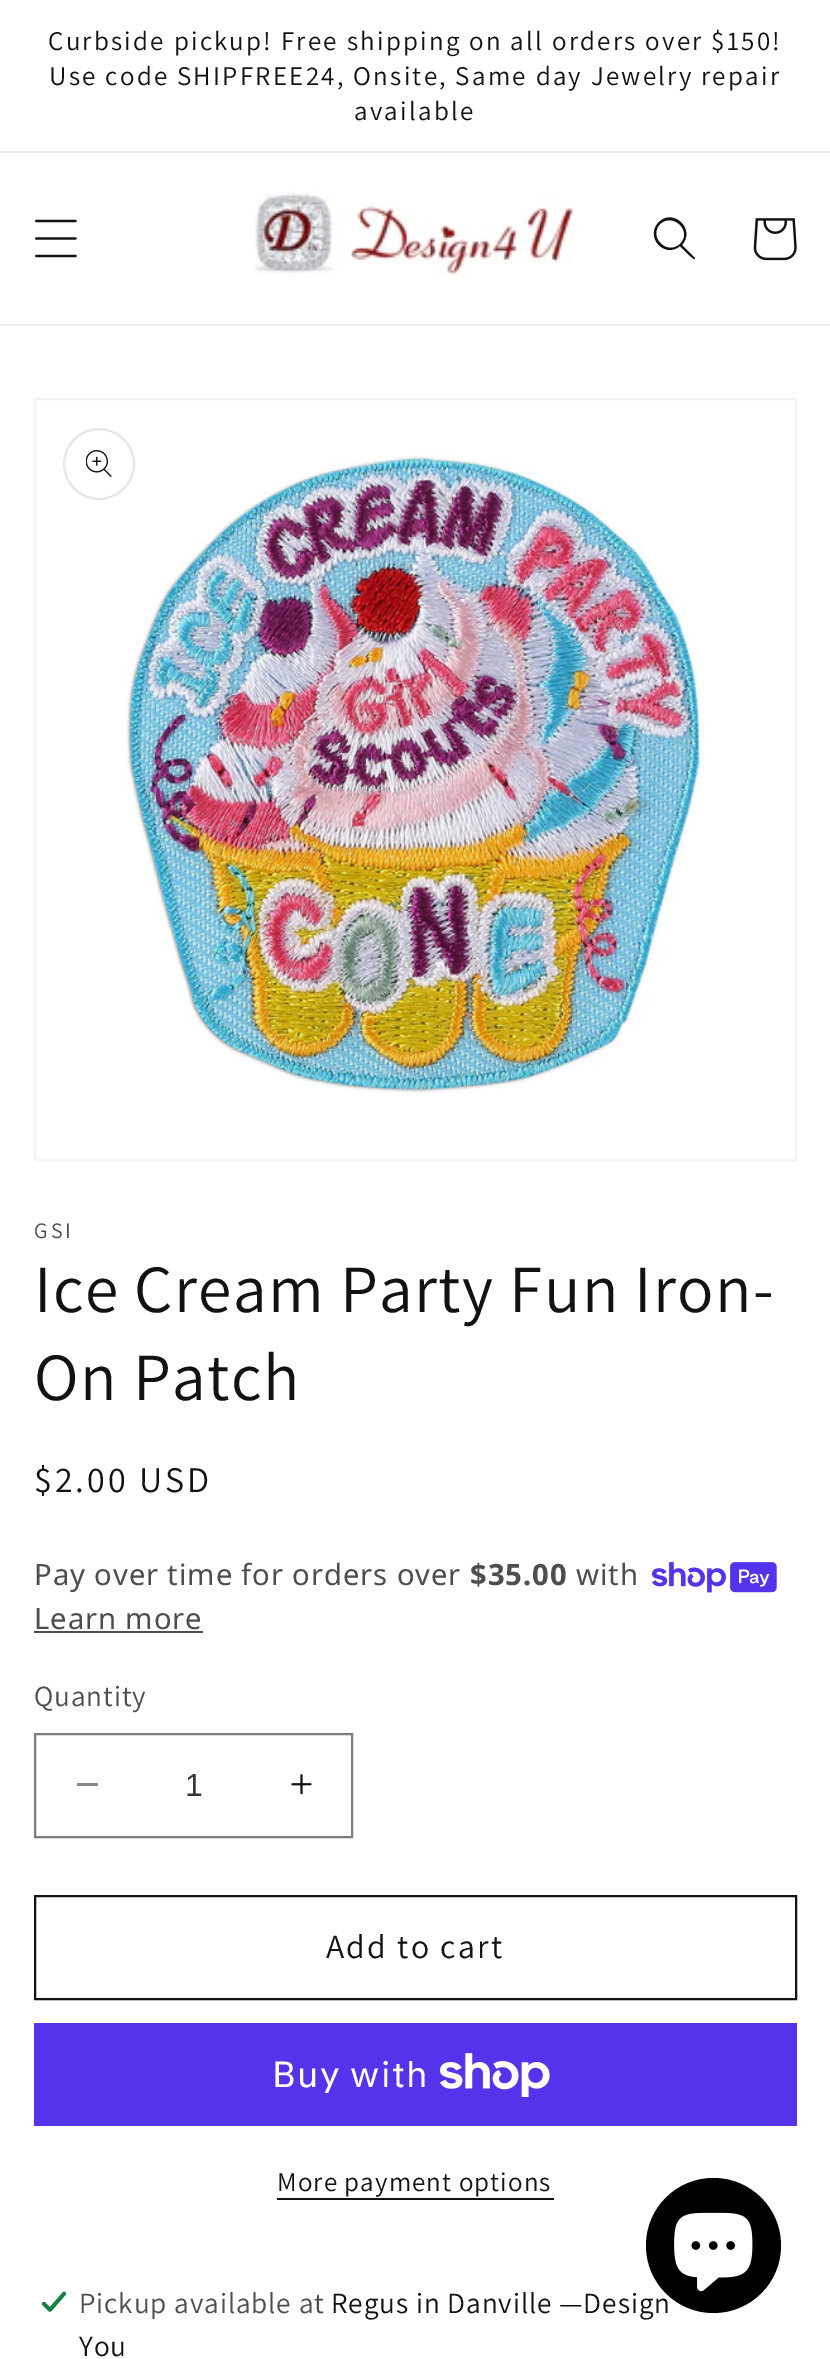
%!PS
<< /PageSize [830 2359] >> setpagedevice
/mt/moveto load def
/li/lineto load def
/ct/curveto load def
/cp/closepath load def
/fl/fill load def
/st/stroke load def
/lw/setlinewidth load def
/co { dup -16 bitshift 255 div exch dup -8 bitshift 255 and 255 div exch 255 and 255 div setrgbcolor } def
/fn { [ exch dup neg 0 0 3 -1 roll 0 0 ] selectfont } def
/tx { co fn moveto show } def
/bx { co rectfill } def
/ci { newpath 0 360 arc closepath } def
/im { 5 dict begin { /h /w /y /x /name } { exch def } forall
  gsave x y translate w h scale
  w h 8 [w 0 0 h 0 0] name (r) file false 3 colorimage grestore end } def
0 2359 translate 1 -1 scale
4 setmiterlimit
0 0 830 2359 16#FFFFFF bx
0 151 830 2 16#ECECEC bx
0 324 830 2 16#ECECEC bx
(media/1.raw) 35 219 42 39 im
(media/2.raw) 255 191 319 86 im
16#121212 co
680 244 mt 667 256 648 237 660 224 ct 673 212 693 231 680 244 ct cp 680 246 mt 665 259 644 237 659 222 ct 673 208 696 229 682 245 ct 695 258 li 695 259 li 693 260 682 248 680 246 ct cp eofill
(media/3.raw) 753 218 44 43 im
16#F3F3F3 co
2 lw
35 399 761 761 rectstroke
(media/5.raw) 126 454 578 640 im
16#E7E7E7 co
99 464 35 ci st
(media/4.raw) 86 450 26 27 im
(media/6.raw) 652 1562 125 31 im
34 1631 169 2 16#4D4D4D bx
77 1783 21 3 16#898989 bx
(media/7.raw) 291 1774 21 21 im
16#7D7D7D co
35 1734 317 103 rectstroke
16#121212 co
35 1896 761 103 rectstroke
34 2023 763 103 16#5433EB bx
(media/8.raw) 440 2053 110 44 im
277 2198 277 2 16#121212 bx
(media/9.raw) 41 2291 26 21 im
/Assistant-Regular 27 fn
48 50 mt 2.25 0 (Curbside pickup! Free shipping on all orders over $150!) ashow
49 85 mt 2.25 0 (Use code SHIPFREE24, Onsite, Same day Jewelry repair) ashow
354 120 mt 2.25 0 (available) ashow
/Assistant-Regular 22 fn
16#4D4D4D co
34 1238 mt 3 0 (GSI) ashow
/Assistant-Regular 67.5 fn
16#121212 co
34 1312 mt 1.35 0 (Ice Cream Party Fun Iron-) ashow
34 1400 mt 1.35 0 (On Patch) ashow
/Assistant-Regular 36 fn
34 1492 mt 3 0 ($2.00 USD) ashow
/NotoSans-Regular 29.25 fn
16#4D4D4D co
34 1585 mt .9 0 (Pay over time for orders over) ashow
/NotoSans-Bold 29.25 fn
470 1585 mt .9 0 ($35.00) ashow
/NotoSans-Regular 29.25 fn
576 1585 mt .9 0 (with) ashow
34 1629 mt .9 0 (Learn more) ashow
/Assistant-Regular 29.25 fn
34 1706 mt .9 0 (Quantity) ashow
(1) 185 1796 /LiberationSans-Regular 32 16#363636 tx
/Assistant-Regular 33.75 fn
16#121212 co
326 1958 mt 2.25 0 (Add to cart) ashow
/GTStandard-Regular 36 fn
16#FFFFFF co
272 2087 mt 1.35 0 (Buy with) ashow
/Assistant-Regular 27 fn
16#121212 co
277 2191 mt 1.1 0 (More payment options) ashow
/Assistant-Regular 29.25 fn
16#4D4D4D co
79 2313 mt .9 0 (Pickup available at) ashow
16#121212 co
331 2313 mt .9 0 (Regus in Danville —Design) ashow
79 2356 mt .9 0 (You) ashow
16#000000 co
713.5 2245.5 67.5 ci fl
(media/10.raw) 674 2212 79 80 im
showpage
